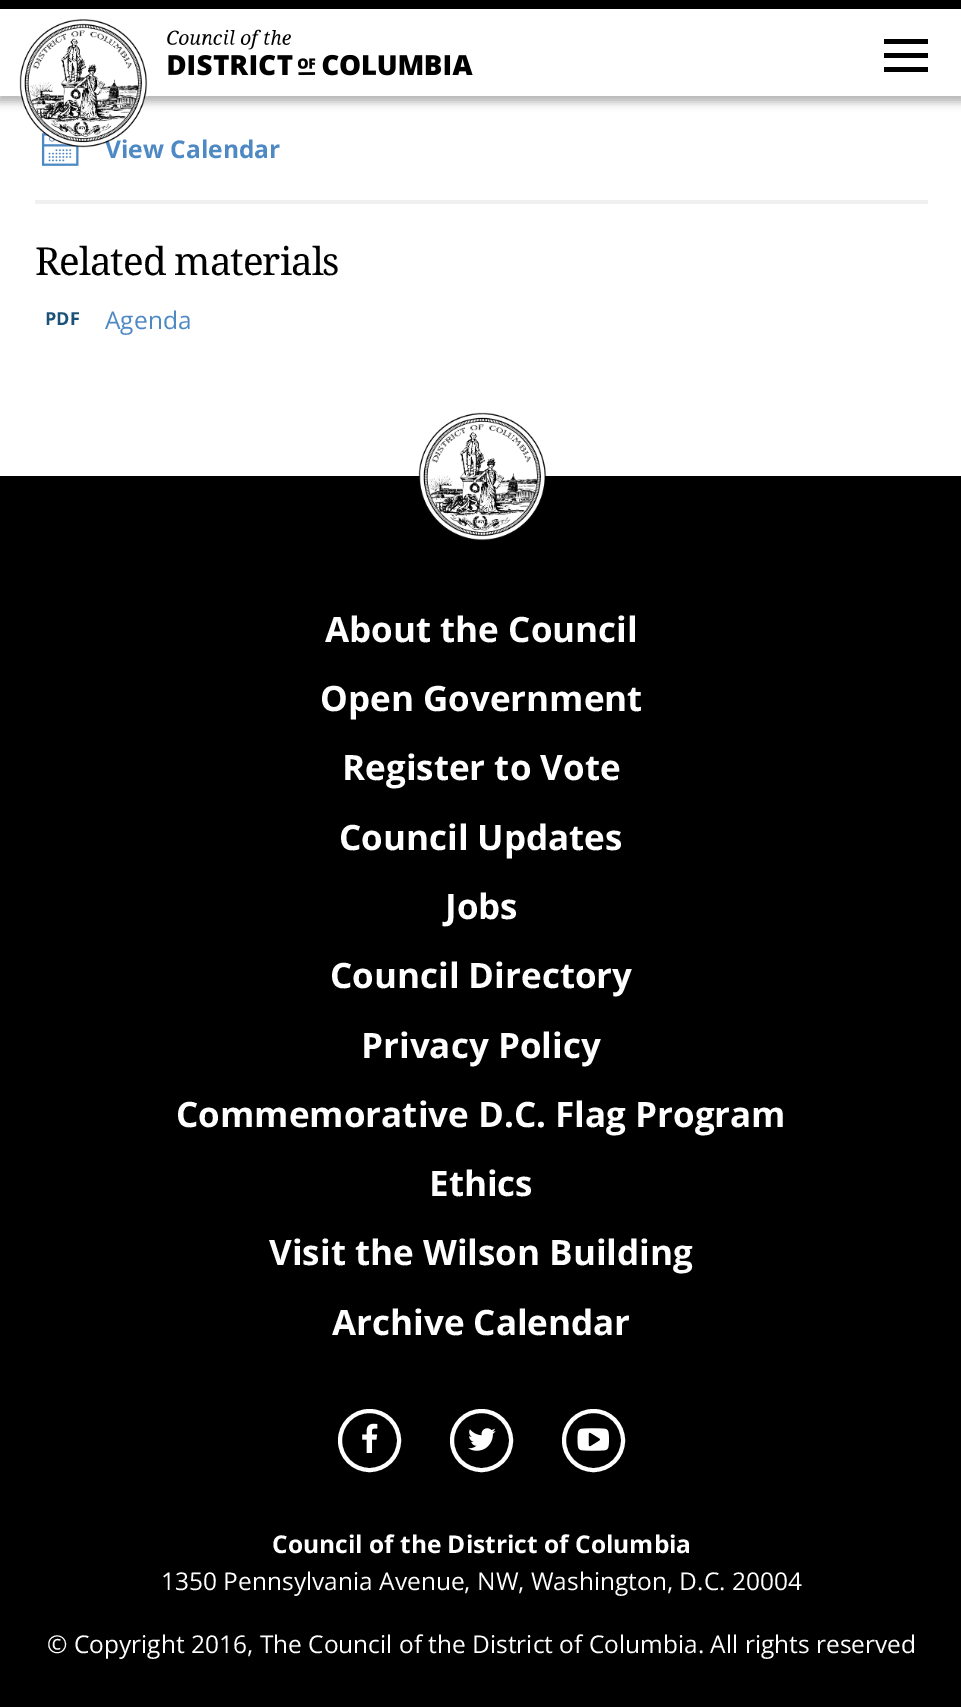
%!PS
<< /PageSize [961 1707] /PageUsesTransparency true >> setpagedevice
/mt/moveto load def
/st/stroke load def
/lw/setlinewidth load def
/co { dup -16 bitshift 255 div exch dup -8 bitshift 255 and 255 div exch 255 and 255 div setrgbcolor } def
/fn { [ exch dup neg 0 0 3 -1 roll 0 0 ] selectfont } def
/tx { co fn moveto show } def
/bx { co rectfill } def
/al { dup .setfillconstantalpha .setstrokeconstantalpha } def
/ci { newpath 0 360 arc closepath } def
/rr { 5 dict begin { /r /h /w /y /x } { exch def } forall
  x r add y moveto x w add y 2 copy h add r arct x w add y h add x 1 index r arct
  x y h add x y r arct x y 2 copy exch w add exch r arct closepath end } def
/sh { 12 dict begin { /a /b /q /h /w /y /x } { exch def } forall gsave /was 0 def
  9 -2 -9 { dup b mul 4 div /e exch def 1 sub .425 mul 2.718 exch exp 1 add a .99 .min exch div /now exch def
    1 1 now sub 1 was sub div sub al /was now def
    w h .min e 2 mul add 0 gt { x e sub y e sub w e 2 mul add h e 2 mul add
      q e add b .6 mul add w h .min 2 div e add .min 0 .max rr fill } if } for grestore end } def
/im { 5 dict begin { /h /w /y /x /name } { exch def } forall
  gsave x y translate w h scale
  w h 8 [w 0 0 h 0 0] name (r) file false 3 colorimage grestore end } def
0 .pushpdf14devicefilter
0 1707 translate 1 -1 scale
4 setmiterlimit
0 0 961 1707 16#FFFFFF bx
16#000000 co
-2 2 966 100 0 4.5 .3 sh
0 9 961 87 16#FFFFFF bx
0 0 961 9 16#000000 bx
(media/2.raw) 167 29 306 47 im
884 53 44 5 16#000000 bx
884 39 44 5 16#000000 bx
884 67 44 5 16#000000 bx
(media/3.raw) 41 133 38 33 im
35 200 893 4 16#F0F0F0 bx
0 476 961 1231 16#000000 bx
(media/4.raw) 418 412 129 129 im
16#FFFFFF co
4 lw
369.5 1440.5 29.5 ci st
(media/5.raw) 362 1423 16 30 im
481.5 1440.5 29.5 ci st
(media/6.raw) 468 1428 28 23 im
593.5 1440.5 29.5 ci st
(media/7.raw) 577 1428 32 23 im
(View Calendar) 105 158 /OpenSans-Bold 24.5 16#4E89C3 tx
(media/1.raw) 19 19 129 129 im
/DroidSerif-Regular 38.5 fn
16#000000 co
35 275 mt -1 0 (Related materials) ashow
(PDF) 45 325 /OpenSans-Bold 18 16#195177 tx
(Agenda) 105 329 /OpenSans-Regular 24.5 16#4E89C3 tx
(About the Council) 325 642 /OpenSans-Bold 35 16#FFFFFF tx
(Open Government) 320 711 /OpenSans-Bold 35 16#FFFFFF tx
(Register to Vote) 342 780 /OpenSans-Bold 35 16#FFFFFF tx
(Council Updates) 339 850 /OpenSans-Bold 35 16#FFFFFF tx
(Jobs) 445 919 /OpenSans-Bold 35 16#FFFFFF tx
(Council Directory) 330 988 /OpenSans-Bold 35 16#FFFFFF tx
(Privacy Policy) 361 1058 /OpenSans-Bold 35 16#FFFFFF tx
(Commemorative D.C. Flag Program) 176 1127 /OpenSans-Bold 35 16#FFFFFF tx
(Ethics) 429 1196 /OpenSans-Bold 35 16#FFFFFF tx
(Visit the Wilson Building) 269 1265 /OpenSans-Bold 35 16#FFFFFF tx
(Archive Calendar) 332 1335 /OpenSans-Bold 35 16#FFFFFF tx
(Council of the District of Columbia) 272 1553 /OpenSans-Bold 24.5 16#FFFFFF tx
(1350 Pennsylvania Avenue, NW, Washington, D.C. 20004) 161 1590 /OpenSans-Regular 24.5 16#FFFFFF tx
(© Copyright 2016, The Council of the District of Columbia. All rights reserved) 47 1653 /OpenSans-Regular 24.5 16#FFFFFF tx
.poppdf14devicefilter showpage
